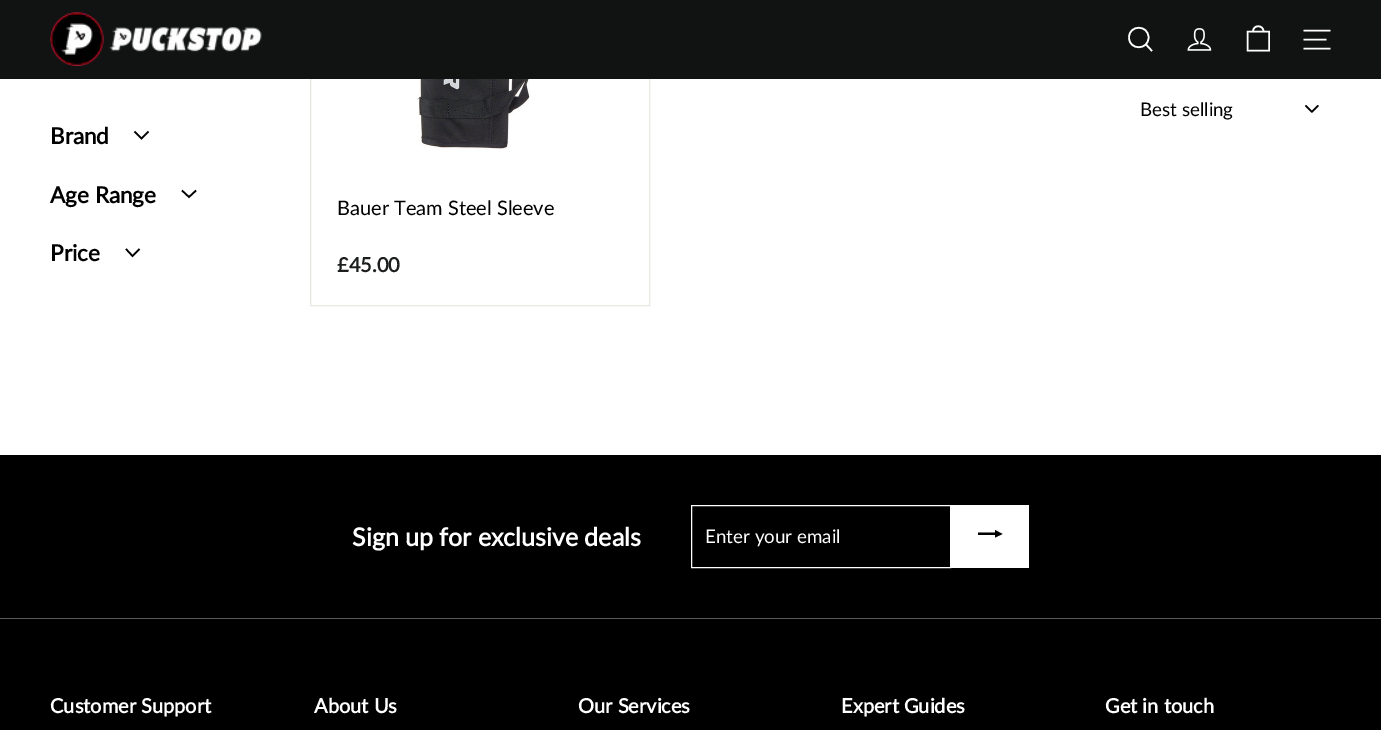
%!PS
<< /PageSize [1381 730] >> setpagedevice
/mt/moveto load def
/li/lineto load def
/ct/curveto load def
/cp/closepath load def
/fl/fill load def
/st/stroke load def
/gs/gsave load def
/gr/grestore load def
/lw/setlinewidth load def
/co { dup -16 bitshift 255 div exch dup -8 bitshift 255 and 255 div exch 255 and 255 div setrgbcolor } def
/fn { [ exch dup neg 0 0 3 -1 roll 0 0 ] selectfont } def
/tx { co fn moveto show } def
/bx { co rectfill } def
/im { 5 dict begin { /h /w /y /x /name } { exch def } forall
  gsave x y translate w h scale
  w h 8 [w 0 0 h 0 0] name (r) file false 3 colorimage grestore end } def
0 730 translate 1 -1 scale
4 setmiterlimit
0 0 1381 730 16#FFFFFF bx
(media/4.raw) 412 79 137 70 im
16#E8E8E1 co
310.5 -.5 339 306 rectstroke
0 0 1381 79 16#111212 bx
(media/1.raw) 50 12 212 54 im
16#FFFFFF co
1.6 lw
1148.5 37.5 mt 1148.5 50.5 1129 50.5 1129 37.5 ct 1129 24.5 1148.5 24.5 1148.5 37.5 ct cp 1152 51 mt 1146 44.5 li st
(media/2.raw) 1187 28 25 23 im
1253 31.5 mt 1253 24.5 1263.5 24.5 1263.5 31.5 ct 1247.5 31.5 mt 1269 31.5 li 1269 50.5 li 1247.5 50.5 li cp st
1303.5 30.5 mt 1330.5 30.5 li 1303.5 39.5 mt 1326.5 39.5 li 1303.5 48.5 mt 1330.5 48.5 li st
16#000000 co
134.5 131.5 mt 141.5 138.5 li 148.5 131.5 li st
182 190.5 mt 189 197 li 196 190.5 li st
126 249 mt 132.5 256 li 139.5 249 li st
(media/3.raw) 1305 105 14 8 im
0 455 1381 163 16#000000 bx
16#FFFFFF co
1 lw
691.5 505.5 259 62 rectstroke
951 505 78 63 16#FFFFFF bx
gs
978 521 25 25 rectclip
16#000000 co
977.5 535 mt 977.5 532.5 li 995 532.5 li 995 530 li 1002.5 534 li 995 537.5 li 995 535 li cp fl
gr
0 619 1381 111 16#000000 bx
0 618 1381 1 16#595959 bx
(Brand) 50 144 /Lato-Bold 22.5 16#000000 tx
(Age Range) 50 203 /Lato-Bold 22.5 16#000000 tx
(Price) 50 261 /Lato-Bold 22.5 16#000000 tx
(Best selling) 1140 116 /Lato-Regular 18.75 16#000000 tx
(Bauer Team Steel Sleeve) 337 215 /Lato-Regular 20 16#000000 tx
(£45.00) 337 272 /Lato-Bold 20 16#1C1D1D tx
(Sign up for exclusive deals) 352 546 /Lato-Bold 25 16#FFFFFF tx
(Enter your email) 705 543 /Lato-Regular 18.75 16#FFFFFF tx
(Customer Support) 50 713 /Lato-Bold 20 16#FFFFFF tx
(About Us) 314 713 /Lato-Bold 20 16#FFFFFF tx
(Our Services) 578 713 /Lato-Bold 20 16#FFFFFF tx
(Expert Guides) 841 713 /Lato-Bold 20 16#FFFFFF tx
(Get in touch) 1105 713 /Lato-Bold 20 16#FFFFFF tx
showpage
